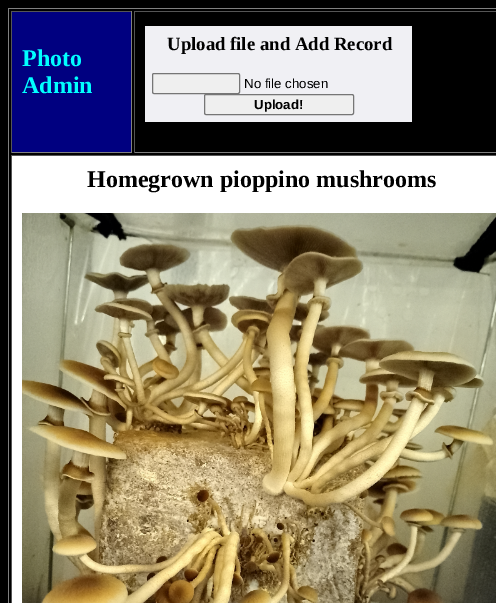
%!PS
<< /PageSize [496 603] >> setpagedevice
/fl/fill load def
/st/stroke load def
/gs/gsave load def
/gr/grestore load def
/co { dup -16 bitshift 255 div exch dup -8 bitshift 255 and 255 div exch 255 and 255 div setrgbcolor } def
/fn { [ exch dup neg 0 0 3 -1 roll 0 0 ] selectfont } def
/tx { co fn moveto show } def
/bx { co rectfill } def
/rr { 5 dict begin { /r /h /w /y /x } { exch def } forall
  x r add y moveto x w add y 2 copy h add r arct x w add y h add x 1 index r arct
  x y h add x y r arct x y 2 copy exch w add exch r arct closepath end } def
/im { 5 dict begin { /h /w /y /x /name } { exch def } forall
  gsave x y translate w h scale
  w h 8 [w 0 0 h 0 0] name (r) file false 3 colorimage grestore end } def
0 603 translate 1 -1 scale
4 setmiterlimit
0 0 496 603 16#000000 bx
8 8 488 1 16#808080 bx
8 8 1 595 16#808080 bx
12 12 119 140 16#000080 bx
11 11 121 1 16#555555 bx
131 11 1 142 16#808080 bx
11 152 121 1 16#808080 bx
11 11 1 142 16#555555 bx
134 11 362 1 16#555555 bx
134 152 362 1 16#808080 bx
134 11 1 142 16#555555 bx
145 26 267 96 16#F0F0F4 bx
16#EFEFEF co
152.5 73.5 87 20 1.5 rr gs fl gr
16#767676 co
st
16#EFEFEF co
204.5 94.5 149 20 1.5 rr gs fl gr
16#767676 co
st
12 156 484 447 16#FFFFFF bx
11 155 485 1 16#555555 bx
11 155 1 448 16#555555 bx
(media/1.raw) 22 213 474 390 im
(Photo) 22 66 /LiberationSerif-Bold 24 16#00FFFF tx
(Admin) 22 93 /LiberationSerif-Bold 24 16#00FFFF tx
(Upload file and Add Record) 167 50 /LiberationSerif-Bold 18.75 16#000000 tx
(No file chosen) 244 88 /LiberationSans-Regular 13.25 16#000000 tx
(Upload!) 254 109 /LiberationSans-Bold 13.25 16#000000 tx
(Homegrown pioppino mushrooms) 87 187 /LiberationSerif-Bold 24 16#000000 tx
showpage
